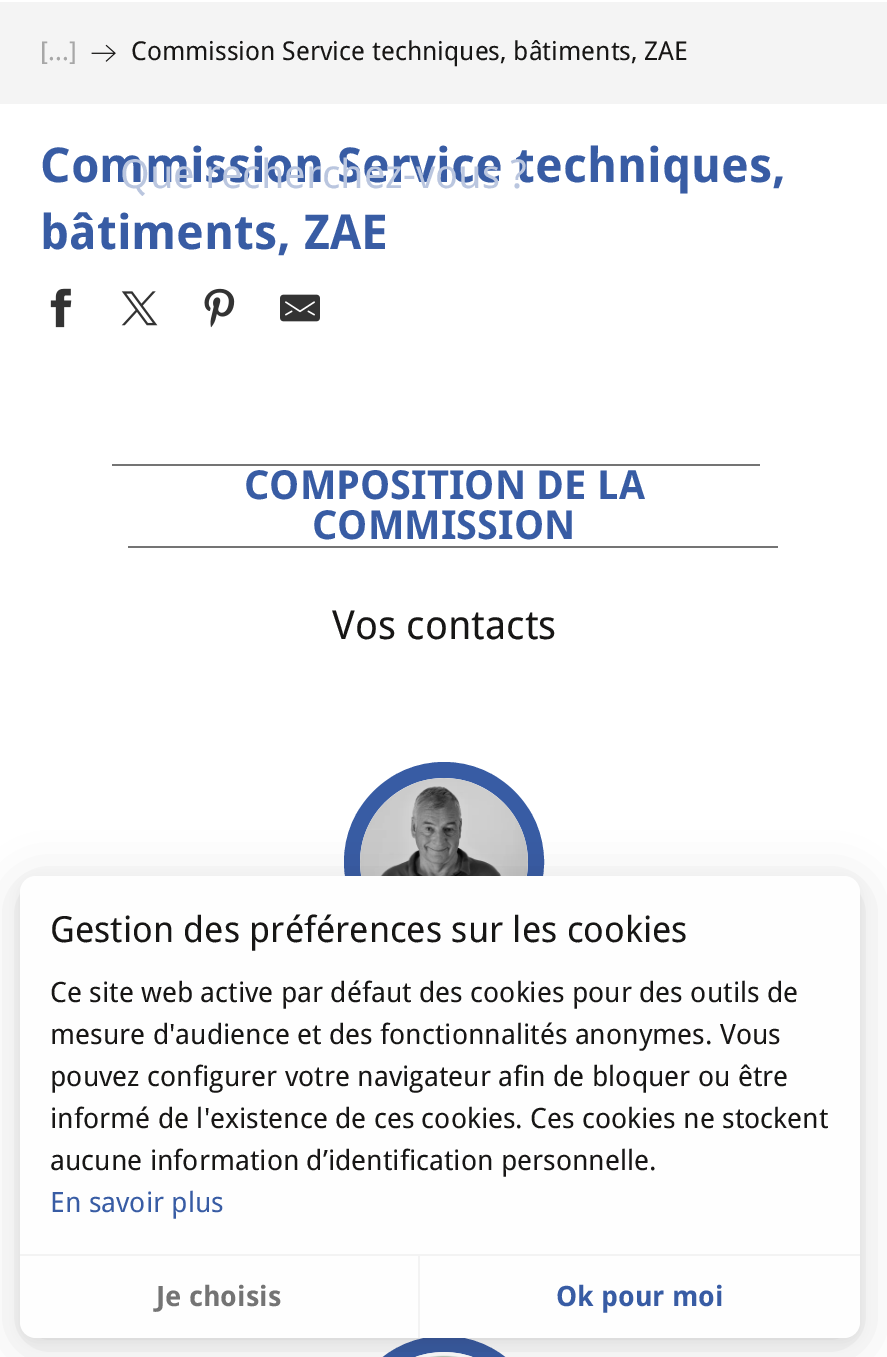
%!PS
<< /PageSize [887 1357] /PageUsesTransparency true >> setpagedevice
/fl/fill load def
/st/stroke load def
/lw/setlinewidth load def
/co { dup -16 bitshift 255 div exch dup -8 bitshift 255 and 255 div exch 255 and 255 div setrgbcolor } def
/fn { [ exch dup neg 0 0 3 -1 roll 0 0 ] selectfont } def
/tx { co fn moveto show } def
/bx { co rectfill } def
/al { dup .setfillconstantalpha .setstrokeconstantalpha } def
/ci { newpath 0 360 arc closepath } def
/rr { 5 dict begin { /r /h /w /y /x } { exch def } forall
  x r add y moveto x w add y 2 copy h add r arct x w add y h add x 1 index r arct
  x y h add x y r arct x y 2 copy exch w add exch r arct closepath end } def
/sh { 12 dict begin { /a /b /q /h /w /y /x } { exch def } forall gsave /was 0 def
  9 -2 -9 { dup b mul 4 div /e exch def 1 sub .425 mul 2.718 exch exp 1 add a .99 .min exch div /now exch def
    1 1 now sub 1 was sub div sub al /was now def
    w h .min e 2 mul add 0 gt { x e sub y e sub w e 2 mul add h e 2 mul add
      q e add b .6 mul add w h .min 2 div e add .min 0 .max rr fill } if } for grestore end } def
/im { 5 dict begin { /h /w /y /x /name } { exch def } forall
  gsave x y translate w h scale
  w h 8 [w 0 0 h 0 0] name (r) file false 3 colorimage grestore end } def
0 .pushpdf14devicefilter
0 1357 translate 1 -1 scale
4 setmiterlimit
0 0 887 1357 16#FFFFFF bx
0 2 887 102 16#F4F4F4 bx
(media/1.raw) 91 44 25 18 im
(media/2.raw) 50 288 22 40 im
(media/3.raw) 121 291 37 35 im
(media/4.raw) 204 288 31 40 im
(media/5.raw) 280 294 40 28 im
112 464 648 2 16#747474 bx
128 546 650 2 16#747474 bx
16#385CA4 co
16 lw
444 862 92 ci st
(media/6.raw) 360 778 168 98 im
352 1344 184 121 92 rr st
(media/7.raw) 415 1352 58 5 im
16#171615 co
20 880 840 462 16 6 .05 sh
20 884 840 462 16 24 .15 sh
16#FEFEFE co
20 876 840 462 16 rr fl
20 1254 840 2 16#F3F3F3 bx
418 1256 2 82 16#F3F3F3 bx
([...]) 40 60 /DroidSans-Regular 26 16#A7A7A7 tx
(Commission Service techniques, bâtiments, ZAE) 131 60 /DroidSans-Regular 26 16#171615 tx
(Commission Service techniques,) 40 182 /DroidSans-Bold 48 16#385CA4 tx
(bâtiments, ZAE) 40 249 /DroidSans-Bold 48 16#385CA4 tx
(COMPOSITION DE LA) 244 499 /DroidSans-Bold 40 16#385CA4 tx
(COMMISSION) 312 539 /DroidSans-Bold 40 16#385CA4 tx
(Vos contacts) 332 639 /DroidSans-Regular 40 16#171615 tx
(Que recherchez-vous ?) 120 188 /DroidSans-Regular 40 16#BAC6DF tx
(Gestion des préférences sur les cookies) 50 942 /DroidSans-Regular 36 16#171615 tx
(Ce site web active par défaut des cookies pour des outils de) 50 1002 /DroidSans-Regular 28 16#171615 tx
(mesure d'audience et des fonctionnalités anonymes. Vous) 50 1044 /DroidSans-Regular 28 16#171615 tx
(pouvez configurer votre navigateur afin de bloquer ou être) 50 1086 /DroidSans-Regular 28 16#171615 tx
(informé de l'existence de ces cookies. Ces cookies ne stockent) 50 1128 /DroidSans-Regular 28 16#171615 tx
(aucune information d’identification personnelle.) 50 1170 /DroidSans-Regular 28 16#171615 tx
(En savoir plus) 50 1212 /DroidSans-Regular 28 16#385CA4 tx
(Je choisis) 156 1306 /DroidSans-Bold 28 16#747474 tx
(Ok pour moi) 556 1306 /DroidSans-Bold 28 16#385CA4 tx
.poppdf14devicefilter showpage
